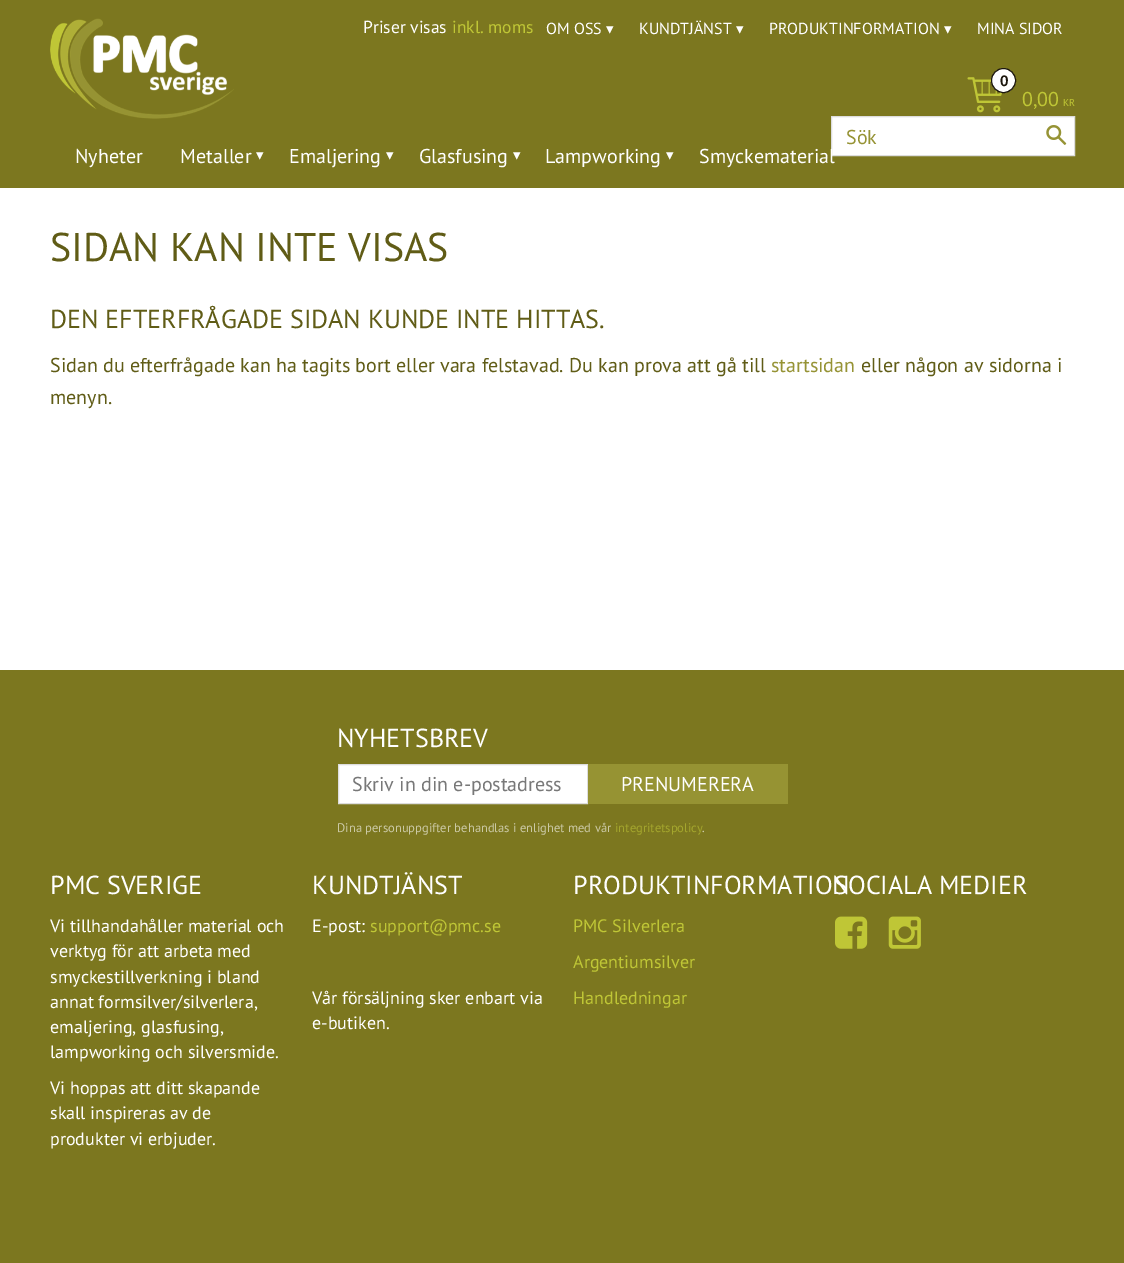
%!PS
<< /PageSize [1124 1263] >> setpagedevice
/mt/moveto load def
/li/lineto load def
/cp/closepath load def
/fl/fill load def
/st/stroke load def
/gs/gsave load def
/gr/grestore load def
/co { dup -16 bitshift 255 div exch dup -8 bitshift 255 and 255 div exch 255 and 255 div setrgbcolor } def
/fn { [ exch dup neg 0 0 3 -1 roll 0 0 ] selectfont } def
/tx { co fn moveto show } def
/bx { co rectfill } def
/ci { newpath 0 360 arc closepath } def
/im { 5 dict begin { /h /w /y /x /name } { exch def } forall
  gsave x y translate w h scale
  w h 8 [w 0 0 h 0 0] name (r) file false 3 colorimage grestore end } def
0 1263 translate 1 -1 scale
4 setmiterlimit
0 0 1124 1263 16#FFFFFF bx
0 0 1124 188 16#7C771F bx
(media/1.raw) 50 18 184 101 im
16#FFFFFF co
831.5 116.5 mt 1074.5 116.5 li 1074.5 155.5 li 831.5 155.5 li cp gs fl gr
16#DDDDDD co
st
(media/2.raw) 1046 125 21 20 im
(media/3.raw) 967 77 36 36 im
16#FFFFFF co
1003.5 80.5 12 ci gs fl gr
16#1C170D co
st
0 670 1124 593 16#7C771F bx
16#FFFFFF co
338.5 764.5 mt 587.5 764.5 li 587.5 803.5 li 338.5 803.5 li cp gs fl gr
16#DDDDDD co
st
588 764 200 40 16#969333 bx
(media/4.raw) 835 916 33 33 im
(media/5.raw) 888 916 33 33 im
(Priser visas) 363 33 /PTSans-Regular 17.5 16#FFFFFF tx
(inkl. moms) 452 33 /PTSans-Regular 17.5 16#BFC636 tx
(OM OSS) 546 34 /PTSans-Regular 16 16#FFFFFF tx
(▾) 606 34 /DejaVuSans-Regular 15 16#FFFFFF tx
(KUNDTJÄNST) 639 34 /PTSans-Regular 16 16#FFFFFF tx
(▾) 736 34 /DejaVuSans-Regular 15 16#FFFFFF tx
(PRODUKTINFORMATION) 769 34 /PTSans-Regular 16 16#FFFFFF tx
(▾) 944 34 /DejaVuSans-Regular 15 16#FFFFFF tx
(MINA SIDOR) 977 34 /PTSans-Regular 16 16#FFFFFF tx
(Sök) 846 144 /PTSans-Regular 20 16#969335 tx
(0) 1000 86 /PTSans-Bold 15 16#1C170D tx
(0,00) 1022 106 /PTSans-Regular 20 16#BFC636 tx
(KR) 1063 106 /PTSans-Regular 10 16#BFC636 tx
(Nyheter) 75 163 /PTSans-Regular 20 16#FFFFFF tx
(Metaller) 180 163 /PTSans-Regular 20 16#FFFFFF tx
(▾) 256 160 /DejaVuSans-Regular 15 16#FFFFFF tx
(Emaljering) 289 163 /PTSans-Regular 20 16#FFFFFF tx
(▾) 386 160 /DejaVuSans-Regular 15 16#FFFFFF tx
(Glasfusing) 419 163 /PTSans-Regular 20 16#FFFFFF tx
(▾) 513 160 /DejaVuSans-Regular 15 16#FFFFFF tx
(Lampworking) 545 163 /PTSans-Regular 20 16#FFFFFF tx
(▾) 666 160 /DejaVuSans-Regular 15 16#FFFFFF tx
(Smyckematerial) 699 163 /PTSans-Regular 20 16#FFFFFF tx
(SIDAN KAN INTE VISAS) 50 261 /PTSans-Regular 40 16#605C16 tx
(DEN EFTERFRÅGADE SIDAN KUNDE INTE HITTAS.) 50 328 /PTSans-Regular 26 16#605C16 tx
(Sidan du efterfrågade kan ha tagits bort eller vara felstavad. Du kan prova att gå till) 50 372 /PTSans-Regular 20 16#605C16 tx
(startsidan) 771 372 /PTSans-Regular 20 16#969335 tx
(eller någon av sidorna i) 861 372 /PTSans-Regular 20 16#605C16 tx
(menyn.) 50 404 /PTSans-Regular 20 16#605C16 tx
(NYHETSBREV) 337 747 /PTSans-Regular 26 16#FFFFFF tx
(Skriv in din e-postadress) 352 791 /PTSans-Regular 20 16#787878 tx
(PRENUMERERA) 621 791 /PTSans-Regular 20 16#FFFFFF tx
(Dina personuppgifter behandlas i enlighet med vår) 337 832 /PTSans-Regular 12.6 16#CBC9A5 tx
(integritetspolicy) 615 832 /PTSans-Regular 12.6 16#A4A62D tx
(.) 702 832 /PTSans-Regular 12.6 16#CBC9A5 tx
(PMC SVERIGE) 50 894 /PTSans-Regular 26 16#FFFFFF tx
(Vi tillhandahåller material och) 50 932 /PTSans-Regular 18 16#FFFFFF tx
(verktyg för att arbeta med) 50 957 /PTSans-Regular 18 16#FFFFFF tx
(smyckestillverkning i bland) 50 983 /PTSans-Regular 18 16#FFFFFF tx
(annat formsilver/silverlera,) 50 1008 /PTSans-Regular 18 16#FFFFFF tx
(emaljering, glasfusing,) 50 1033 /PTSans-Regular 18 16#FFFFFF tx
(lampworking och silversmide.) 50 1058 /PTSans-Regular 18 16#FFFFFF tx
(Vi hoppas att ditt skapande) 50 1094 /PTSans-Regular 18 16#FFFFFF tx
(skall inspireras av de) 50 1119 /PTSans-Regular 18 16#FFFFFF tx
(produkter vi erbjuder.) 50 1145 /PTSans-Regular 18 16#FFFFFF tx
(KUNDTJÄNST) 312 894 /PTSans-Regular 26 16#FFFFFF tx
(E-post:) 312 932 /PTSans-Regular 18 16#FFFFFF tx
(support@pmc.se) 370 932 /PTSans-Regular 18 16#BFC636 tx
(Vår försäljning sker enbart via) 312 1004 /PTSans-Regular 18 16#FFFFFF tx
(e-butiken.) 312 1029 /PTSans-Regular 18 16#FFFFFF tx
(PRODUKTINFORMATION) 573 894 /PTSans-Regular 26 16#FFFFFF tx
(PMC Silverlera) 573 932 /PTSans-Regular 18 16#BFC636 tx
(Argentiumsilver) 573 968 /PTSans-Regular 18 16#BFC636 tx
(Handledningar) 573 1004 /PTSans-Regular 18 16#BFC636 tx
(SOCIALA MEDIER) 834 894 /PTSans-Regular 26 16#FFFFFF tx
showpage
